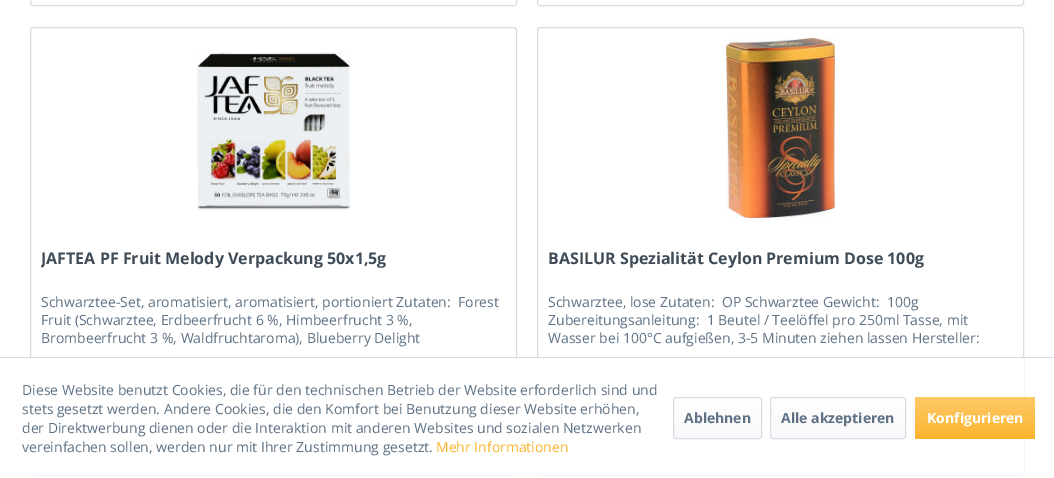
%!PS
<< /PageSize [1054 478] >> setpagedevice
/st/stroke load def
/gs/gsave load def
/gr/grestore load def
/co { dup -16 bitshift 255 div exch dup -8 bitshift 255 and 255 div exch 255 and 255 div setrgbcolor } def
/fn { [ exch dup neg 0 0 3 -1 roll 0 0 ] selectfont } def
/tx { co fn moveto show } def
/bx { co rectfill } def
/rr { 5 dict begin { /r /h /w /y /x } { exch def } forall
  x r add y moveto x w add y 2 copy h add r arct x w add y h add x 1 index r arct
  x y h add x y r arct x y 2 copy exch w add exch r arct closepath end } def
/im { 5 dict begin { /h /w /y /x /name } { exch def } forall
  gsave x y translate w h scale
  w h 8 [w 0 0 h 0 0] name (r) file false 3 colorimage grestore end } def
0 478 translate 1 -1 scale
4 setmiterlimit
0 0 1054 478 16#FFFFFF bx
16#DADAE5 co
30.5 -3.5 486 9 2.5 rr st
537.5 -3.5 486 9 2.5 rr st
30.5 27.5 486 447 2.5 rr st
(media/1.raw) 197 52 153 159 im
537.5 27.5 486 447 2.5 rr st
(media/2.raw) 726 38 109 180 im
30 358 994 117 16#FFFFFF bx
0 357 1054 1 16#DADAE5 bx
gs 674 398 87 40 2 rr clip newpath
<< /ShadingType 2 /ColorSpace /DeviceRGB /Coords [718 398 718 438] /Extend [true true] /Function << /FunctionType 2 /Domain [0 1] /C0 [1 1 1] /C1 [.973 .973 .98] /N 1 >> >> shfill gr
673.5 397.5 88 41 2.5 rr st
gs 771 398 134 40 2 rr clip newpath
<< /ShadingType 2 /ColorSpace /DeviceRGB /Coords [838 398 838 438] /Extend [true true] /Function << /FunctionType 2 /Domain [0 1] /C0 [1 1 1] /C1 [.973 .973 .98] /N 1 >> >> shfill gr
770.5 397.5 135 41 2.5 rr st
gs 915 397 120 42 3 rr clip newpath
<< /ShadingType 2 /ColorSpace /DeviceRGB /Coords [975 397 975 439] /Extend [true true] /Function << /FunctionType 2 /Domain [0 1] /C0 [1 .792 .408] /C1 [.988 .706 .18] /N 1 >> >> shfill gr
gs
41 248 465 40 rectclip
(JAFTEA PF Fruit Melody Verpackung 50x1,5g) 41 264 /OpenSans-Bold 16 16#3F4C58 tx
gr
(Schwarztee-Set, aromatisiert, aromatisiert, portioniert Zutaten:  Forest) 41 307 /OpenSans-Regular 14 16#5F7285 tx
(Fruit \(Schwarztee, Erdbeerfrucht 6 %, Himbeerfrucht 3 %,) 41 325 /OpenSans-Regular 14 16#5F7285 tx
(Brombeerfrucht 3 %, Waldfruchtaroma\), Blueberry Delight) 41 343 /OpenSans-Regular 14 16#5F7285 tx
(BASILUR Spezialität Ceylon Premium Dose 100g) 548 264 /OpenSans-Bold 16 16#3F4C58 tx
(Schwarztee, lose Zutaten:  OP Schwarztee Gewicht:  100g) 548 307 /OpenSans-Regular 14 16#5F7285 tx
(Zubereitungsanleitung:  1 Beutel / Teelöffel pro 250ml Tasse, mit) 548 325 /OpenSans-Regular 14 16#5F7285 tx
(Wasser bei 100°C aufgießen, 3-5 Minuten ziehen lassen Hersteller:) 548 343 /OpenSans-Regular 14 16#5F7285 tx
(Diese Website benutzt Cookies, die für den technischen Betrieb der Website erforderlich sind und) 22 395 /OpenSans-Regular 14 16#5F7285 tx
(stets gesetzt werden. Andere Cookies, die den Komfort bei Benutzung dieser Website erhöhen,) 22 414 /OpenSans-Regular 14 16#5F7285 tx
(der Direktwerbung dienen oder die Interaktion mit anderen Websites und sozialen Netzwerken) 22 433 /OpenSans-Regular 14 16#5F7285 tx
(vereinfachen sollen, werden nur mit Ihrer Zustimmung gesetzt.) 22 452 /OpenSans-Regular 14 16#5F7285 tx
(Mehr Informationen) 436 452 /OpenSans-Regular 14 16#FCB42E tx
(Ablehnen) 684 423 /OpenSans-Bold 14 16#5F7285 tx
(Alle akzeptieren) 781 423 /OpenSans-Bold 14 16#5F7285 tx
(Konfigurieren) 927 423 /OpenSans-Bold 14 16#FFFFFF tx
showpage
